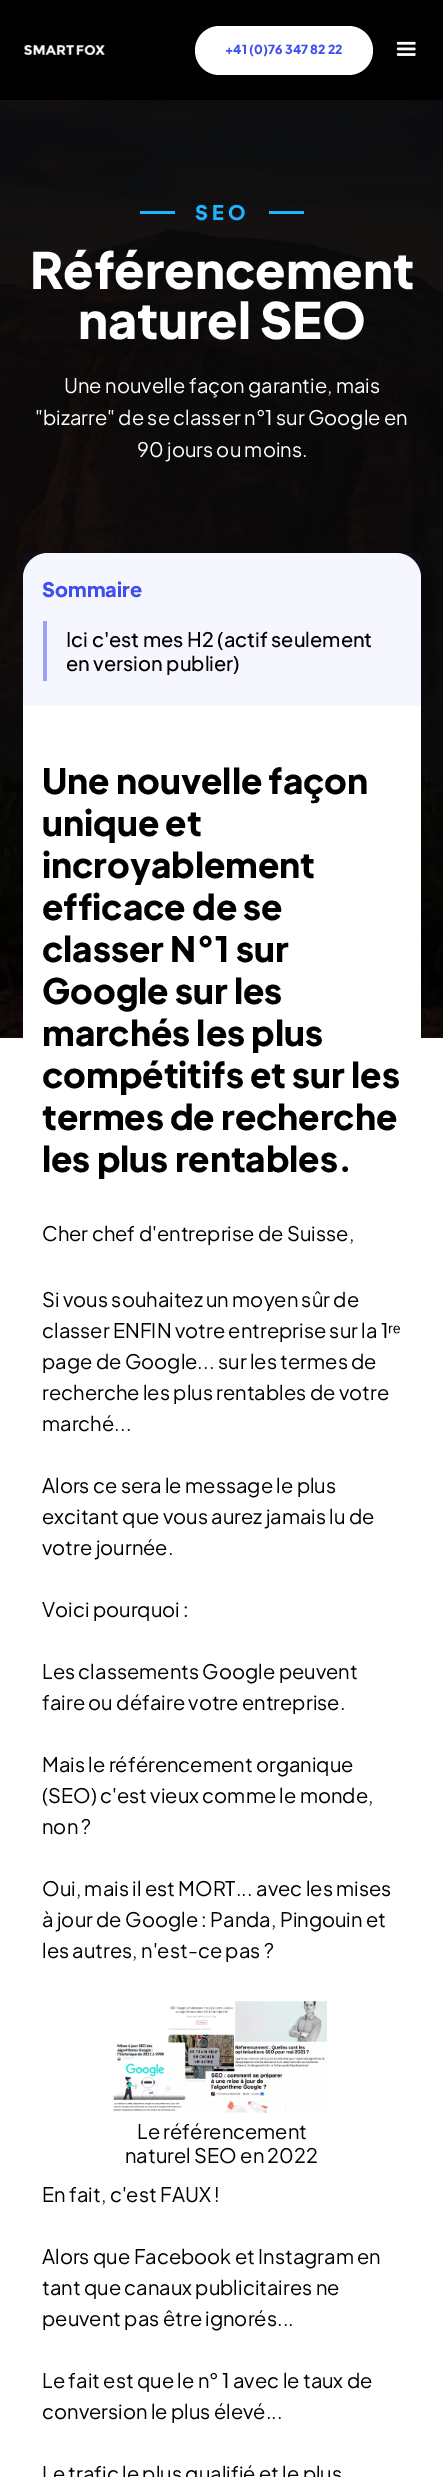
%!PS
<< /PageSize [443 2477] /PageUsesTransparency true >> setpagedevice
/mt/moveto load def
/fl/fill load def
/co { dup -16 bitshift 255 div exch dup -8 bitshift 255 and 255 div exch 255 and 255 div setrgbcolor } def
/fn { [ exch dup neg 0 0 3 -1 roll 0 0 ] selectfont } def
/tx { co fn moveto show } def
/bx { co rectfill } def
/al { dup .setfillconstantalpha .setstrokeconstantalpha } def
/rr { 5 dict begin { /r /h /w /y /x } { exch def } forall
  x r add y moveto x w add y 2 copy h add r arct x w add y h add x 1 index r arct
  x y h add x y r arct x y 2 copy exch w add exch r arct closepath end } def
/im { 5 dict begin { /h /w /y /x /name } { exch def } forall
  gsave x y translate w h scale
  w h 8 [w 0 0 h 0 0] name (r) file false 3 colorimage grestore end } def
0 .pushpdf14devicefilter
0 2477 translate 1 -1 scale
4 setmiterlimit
0 0 443 2477 16#FFFFFF bx
0 1037 443 1 16#191919 bx
0 0 443 100 16#000000 bx
(media/1.raw) 24 45 81 10 im
16#FFFFFF co
195 26 178 49 24.5 rr fl
(media/2.raw) 396 41 20 15 im
(media/3.raw) 0 100 443 938 im
269 211 35 3 16#1FB4FF bx
140 211 35 3 16#1FB4FF bx
16#FFFFFF co
23 553 398 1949 25 rr fl
0.05 al
23 553 398 153 16#404EED bx
1 al
43 621 4 60 16#9BA2F6 bx
(media/4.raw) 113 2001 214 112 im
(+41 \(0\)76 347 82 22) 225 54 /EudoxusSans-ExtraBold 12.5 16#404EED tx
/EudoxusSans-ExtraBold 20 fn
16#1FB4FF co
195 220 mt 4 0 (SEO) ashow
(Référencement) 30 289 /EudoxusSans-ExtraBold 50 16#FFFFFF tx
(naturel SEO) 78 339 /EudoxusSans-ExtraBold 50 16#FFFFFF tx
(Une nouvelle façon garantie, mais) 64 393 /EudoxusSans-Regular 20 16#FFFFFF tx
("bizarre" de se classer n°1 sur Google en) 35 425 /EudoxusSans-Regular 20 16#FFFFFF tx
(90 jours ou moins.) 137 457 /EudoxusSans-Regular 20 16#FFFFFF tx
(Sommaire) 42 597 /EudoxusSans-ExtraBold 20 16#404EED tx
(Ici c'est mes H2 \(actif seulement) 66 647 /EudoxusSans-Medium 20 16#000000 tx
(en version publier\)) 66 671 /EudoxusSans-Medium 20 16#000000 tx
(Une nouvelle façon) 42 794 /EudoxusSans-ExtraBold 35 16#000000 tx
(unique et) 42 836 /EudoxusSans-ExtraBold 35 16#000000 tx
(incroyablement) 42 878 /EudoxusSans-ExtraBold 35 16#000000 tx
(efficace de se) 42 920 /EudoxusSans-ExtraBold 35 16#000000 tx
(classer N°1 sur) 42 962 /EudoxusSans-ExtraBold 35 16#000000 tx
(Google sur les) 42 1004 /EudoxusSans-ExtraBold 35 16#000000 tx
(marchés les plus) 42 1046 /EudoxusSans-ExtraBold 35 16#000000 tx
(compétitifs et sur les) 42 1088 /EudoxusSans-ExtraBold 35 16#000000 tx
(termes de recherche) 42 1130 /EudoxusSans-ExtraBold 35 16#000000 tx
(les plus rentables.) 42 1172 /EudoxusSans-ExtraBold 35 16#000000 tx
(Cher chef d'entreprise de Suisse,) 42 1241 /EudoxusSans-Regular 20 16#000000 tx
(Si vous souhaitez un moyen sûr de) 42 1307 /EudoxusSans-Regular 20 16#000000 tx
(classer ENFIN votre entreprise sur la 1) 42 1338 /EudoxusSans-Regular 20 16#000000 tx
(ʳᵉ) 388 1338 /LiberationSans-Regular 20 16#000000 tx
(page de Google... sur les termes de) 42 1369 /EudoxusSans-Regular 20 16#000000 tx
(recherche les plus rentables de votre) 42 1400 /EudoxusSans-Regular 20 16#000000 tx
(marché...) 42 1431 /EudoxusSans-Regular 20 16#000000 tx
(Alors ce sera le message le plus) 42 1493 /EudoxusSans-Regular 20 16#000000 tx
(excitant que vous aurez jamais lu de) 42 1524 /EudoxusSans-Regular 20 16#000000 tx
(votre journée.) 42 1555 /EudoxusSans-Regular 20 16#000000 tx
(Voici pourquoi :) 42 1617 /EudoxusSans-Regular 20 16#000000 tx
(Les classements Google peuvent) 42 1679 /EudoxusSans-Regular 20 16#000000 tx
(faire ou défaire votre entreprise.) 42 1710 /EudoxusSans-Regular 20 16#000000 tx
(Mais le référencement organique) 42 1772 /EudoxusSans-Regular 20 16#000000 tx
(\(SEO\) c'est vieux comme le monde,) 42 1803 /EudoxusSans-Regular 20 16#000000 tx
(non ?) 42 1834 /EudoxusSans-Regular 20 16#000000 tx
(Oui, mais il est MORT... avec les mises) 42 1896 /EudoxusSans-Regular 20 16#000000 tx
(à jour de Google : Panda, Pingouin et) 42 1927 /EudoxusSans-Regular 20 16#000000 tx
(les autres, n'est-ce pas ?) 42 1958 /EudoxusSans-Regular 20 16#000000 tx
(Le référencement) 137 2139 /EudoxusSans-Regular 20 16#000000 tx
(naturel SEO en 2022) 125 2163 /EudoxusSans-Regular 20 16#000000 tx
(En fait, c'est FAUX !) 42 2202 /EudoxusSans-Regular 20 16#000000 tx
(Alors que Facebook et Instagram en) 42 2264 /EudoxusSans-Regular 20 16#000000 tx
(tant que canaux publicitaires ne) 42 2295 /EudoxusSans-Regular 20 16#000000 tx
(peuvent pas être ignorés...) 42 2326 /EudoxusSans-Regular 20 16#000000 tx
(Le fait est que le n° 1 avec le taux de) 42 2388 /EudoxusSans-Regular 20 16#000000 tx
(conversion le plus élevé...) 42 2419 /EudoxusSans-Regular 20 16#000000 tx
(Le trafic le plus qualifié et le plus) 42 2481 /EudoxusSans-Regular 20 16#000000 tx
.poppdf14devicefilter showpage
